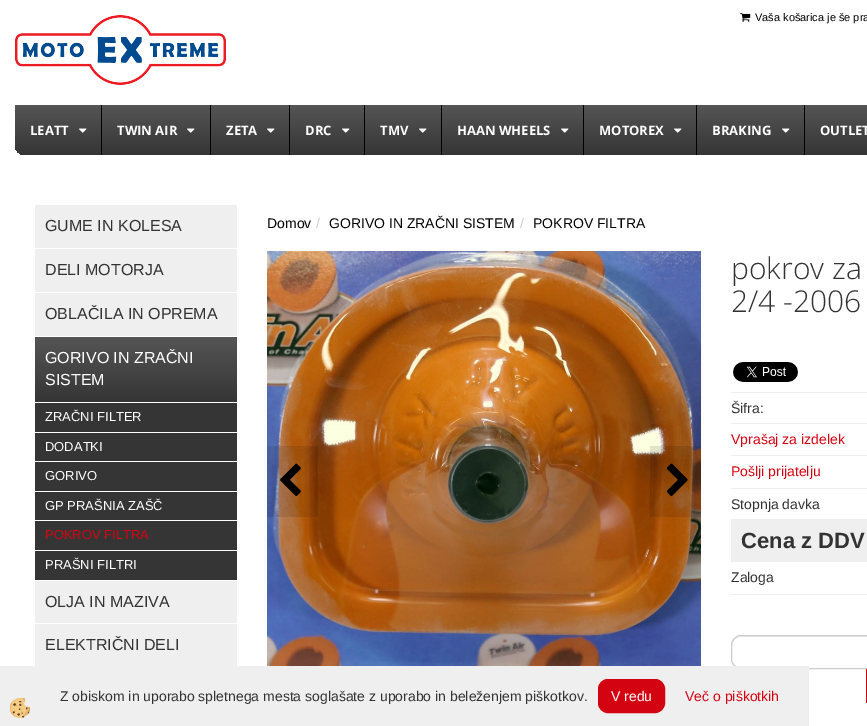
%!PS
<< /PageSize [867 726] /PageUsesTransparency true >> setpagedevice
/mt/moveto load def
/li/lineto load def
/ct/curveto load def
/cp/closepath load def
/fl/fill load def
/st/stroke load def
/gs/gsave load def
/gr/grestore load def
/co { dup -16 bitshift 255 div exch dup -8 bitshift 255 and 255 div exch 255 and 255 div setrgbcolor } def
/fn { [ exch dup neg 0 0 3 -1 roll 0 0 ] selectfont } def
/tx { co fn moveto show } def
/bx { co rectfill } def
/al { dup .setfillconstantalpha .setstrokeconstantalpha } def
/rr { 5 dict begin { /r /h /w /y /x } { exch def } forall
  x r add y moveto x w add y 2 copy h add r arct x w add y h add x 1 index r arct
  x y h add x y r arct x y 2 copy exch w add exch r arct closepath end } def
/im { 5 dict begin { /h /w /y /x /name } { exch def } forall
  gsave x y translate w h scale
  w h 8 [w 0 0 h 0 0] name (r) file false 3 colorimage grestore end } def
0 .pushpdf14devicefilter
0 726 translate 1 -1 scale
4 setmiterlimit
0 0 867 726 16#FFFFFF bx
(media/1.raw) 15 15 211 70 im
(media/2.raw) 740 13 11 9 im
gs 15 105 mt 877 105 li 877 145 li 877 150.5 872.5 155 867 155 ct 25 155 li 19.5 155 15 150.5 15 145 ct cp clip newpath
<< /ShadingType 2 /ColorSpace /DeviceRGB /Coords [600 105 600 155] /Extend [true true] /Function << /FunctionType 2 /Domain [0 1] /C0 [.333 .333 .333] /C1 [.208 .208 .208] /N 1 >> >> shfill gr
101 105 1 50 16#000000 bx
(media/3.raw) 79 128 8 5 im
210 105 1 50 16#000000 bx
(media/3.raw) 187 128 8 5 im
289 105 1 50 16#000000 bx
(media/3.raw) 267 128 8 5 im
364 105 1 50 16#000000 bx
(media/3.raw) 342 128 8 5 im
441 105 1 50 16#000000 bx
(media/3.raw) 419 128 8 5 im
583 105 1 50 16#000000 bx
(media/3.raw) 561 128 8 5 im
696 105 1 50 16#000000 bx
(media/3.raw) 674 128 8 5 im
804 105 1 50 16#000000 bx
(media/3.raw) 782 128 8 5 im
35 205 202 461 16#EFEFEF bx
35 248 202 1 16#FFFFFF bx
35 292 202 1 16#FFFFFF bx
35 336 202 1 16#FFFFFF bx
gs 35 337 mt 237 337 li 237 402 li 35 402 li cp clip newpath
<< /ShadingType 2 /ColorSpace /DeviceRGB /Coords [136 337 136 402] /Extend [true true] /Function << /FunctionType 2 /Domain [0 1] /C0 [.333 .333 .333] /C1 [.208 .208 .208] /N 1 >> >> shfill gr
35 402 202 1 16#FFFFFF bx
35 403 202 29 16#353535 bx
35 432 202 1 16#FFFFFF bx
35 433 202 28 16#353535 bx
35 461 202 1 16#FFFFFF bx
35 462 202 29 16#353535 bx
35 491 202 1 16#FFFFFF bx
35 492 202 28 16#353535 bx
35 520 202 1 16#FFFFFF bx
35 521 202 29 16#353535 bx
35 550 202 1 16#FFFFFF bx
35 551 202 29 16#353535 bx
35 580 202 1 16#FFFFFF bx
35 623 202 1 16#FFFFFF bx
(media/4.raw) 267 251 434 415 im
0.1 al
267 446 51 71 16#000000 bx
1 al
(media/5.raw) 280 463 21 33 im
0.1 al
650 446 51 71 16#000000 bx
1 al
(media/6.raw) 666 463 22 33 im
731 392 136 1 16#EFEFEF bx
(media/7.raw) 733 362 65 20 im
731 423 136 1 16#EFEFEF bx
731 455 136 1 16#EFEFEF bx
731 488 136 1 16#EFEFEF bx
731 519 136 43 16#EFEFEF bx
731 594 136 1 16#EFEFEF bx
16#ECECEC co
741 637 mt 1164 637 li 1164 636 li 741 636 li 736 636 732 640 732 645 ct 732 646 li 732 641 736 637 741 637 ct cp fl
16#CCCCCC co
741 635.5 mt 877.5 635.5 li 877.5 668.5 li 741 668.5 li 736 668.5 731.5 664 731.5 659 ct 731.5 645 li 731.5 640 736 635.5 741 635.5 ct cp st
866 669 1 34 16#D40311 bx
0 666 809 60 16#EFEFEF bx
(media/8.raw) 10 698 20 20 im
16#D40311 co
598.5 679.5 66 33 9.5 rr gs fl gr
st
(Vaša košarica je še pra) 755 21 /LiberationSans-Regular 11 16#000000 tx
(LEATT) 30 135 /OpenSans-Bold 13 16#FFFFFF tx
(TWIN AIR) 117 135 /OpenSans-Bold 13 16#FFFFFF tx
(ZETA) 226 135 /OpenSans-Bold 13 16#FFFFFF tx
(DRC) 305 135 /OpenSans-Bold 13 16#FFFFFF tx
(TMV) 380 135 /OpenSans-Bold 13 16#FFFFFF tx
(HAAN WHEELS) 457 135 /OpenSans-Bold 13 16#FFFFFF tx
(MOTOREX) 599 135 /OpenSans-Bold 13 16#FFFFFF tx
(BRAKING) 712 135 /OpenSans-Bold 13 16#FFFFFF tx
(OUTLET) 820 135 /OpenSans-Bold 13 16#FFFFFF tx
(GUME IN KOLESA) 45 231 /LiberationSans-Regular 16 16#333333 tx
(DELI MOTORJA) 45 275 /LiberationSans-Regular 16 16#333333 tx
(OBLAČILA IN OPREMA) 45 319 /LiberationSans-Regular 16 16#333333 tx
(GORIVO IN ZRAČNI) 45 363 /LiberationSans-Regular 16 16#FFFFFF tx
(SISTEM) 45 385 /LiberationSans-Regular 16 16#FFFFFF tx
(ZRAČNI FILTER) 45 421 /LiberationSans-Regular 13 16#FFFFFF tx
(DODATKI) 45 451 /LiberationSans-Regular 13 16#FFFFFF tx
(GORIVO) 45 480 /LiberationSans-Regular 13 16#FFFFFF tx
(GP PRAŠNIA ZAŠČ) 45 510 /LiberationSans-Regular 13 16#FFFFFF tx
(POKROV FILTRA) 45 539 /LiberationSans-Regular 13 16#D40311 tx
(PRAŠNI FILTRI) 45 569 /LiberationSans-Regular 13 16#FFFFFF tx
(OLJA IN MAZIVA) 45 607 /LiberationSans-Regular 16 16#333333 tx
(ELEKTRIČNI DELI) 45 650 /LiberationSans-Regular 16 16#333333 tx
(Domov) 267 228 /LiberationSans-Regular 14 16#000000 tx
(/) 316 228 /LiberationSans-Regular 14 16#CCCCCC tx
(GORIVO IN ZRAČNI SISTEM) 329 228 /LiberationSans-Regular 14 16#000000 tx
(/) 520 228 /LiberationSans-Regular 14 16#CCCCCC tx
(POKROV FILTRA) 533 228 /LiberationSans-Regular 14 16#000000 tx
(pokrov za) 731 279 /OpenSans-Light 30 16#333333 tx
(2/4 -2006) 731 312 /OpenSans-Light 30 16#333333 tx
(Šifra:) 731 413 /LiberationSans-Regular 14 16#333333 tx
(Vprašaj za izdelek) 731 444 /LiberationSans-Regular 14 16#D40311 tx
(Pošlji prijatelju) 731 476 /LiberationSans-Regular 14 16#D40311 tx
(Stopnja davka) 731 509 /LiberationSans-Regular 14 16#333333 tx
(Cena z DDV) 741 548 /LiberationSans-Bold 22 16#333333 tx
(Zaloga) 731 582 /LiberationSans-Regular 14 16#333333 tx
(Z obiskom in uporabo spletnega mesta soglašate z uporabo in beleženjem piškotkov.) 60 701 /LiberationSans-Regular 14 16#333333 tx
(V redu) 611 701 /LiberationSans-Regular 14 16#FFFFFF tx
(Več o piškotkih) 685 701 /LiberationSans-Regular 14 16#D40311 tx
.poppdf14devicefilter showpage
